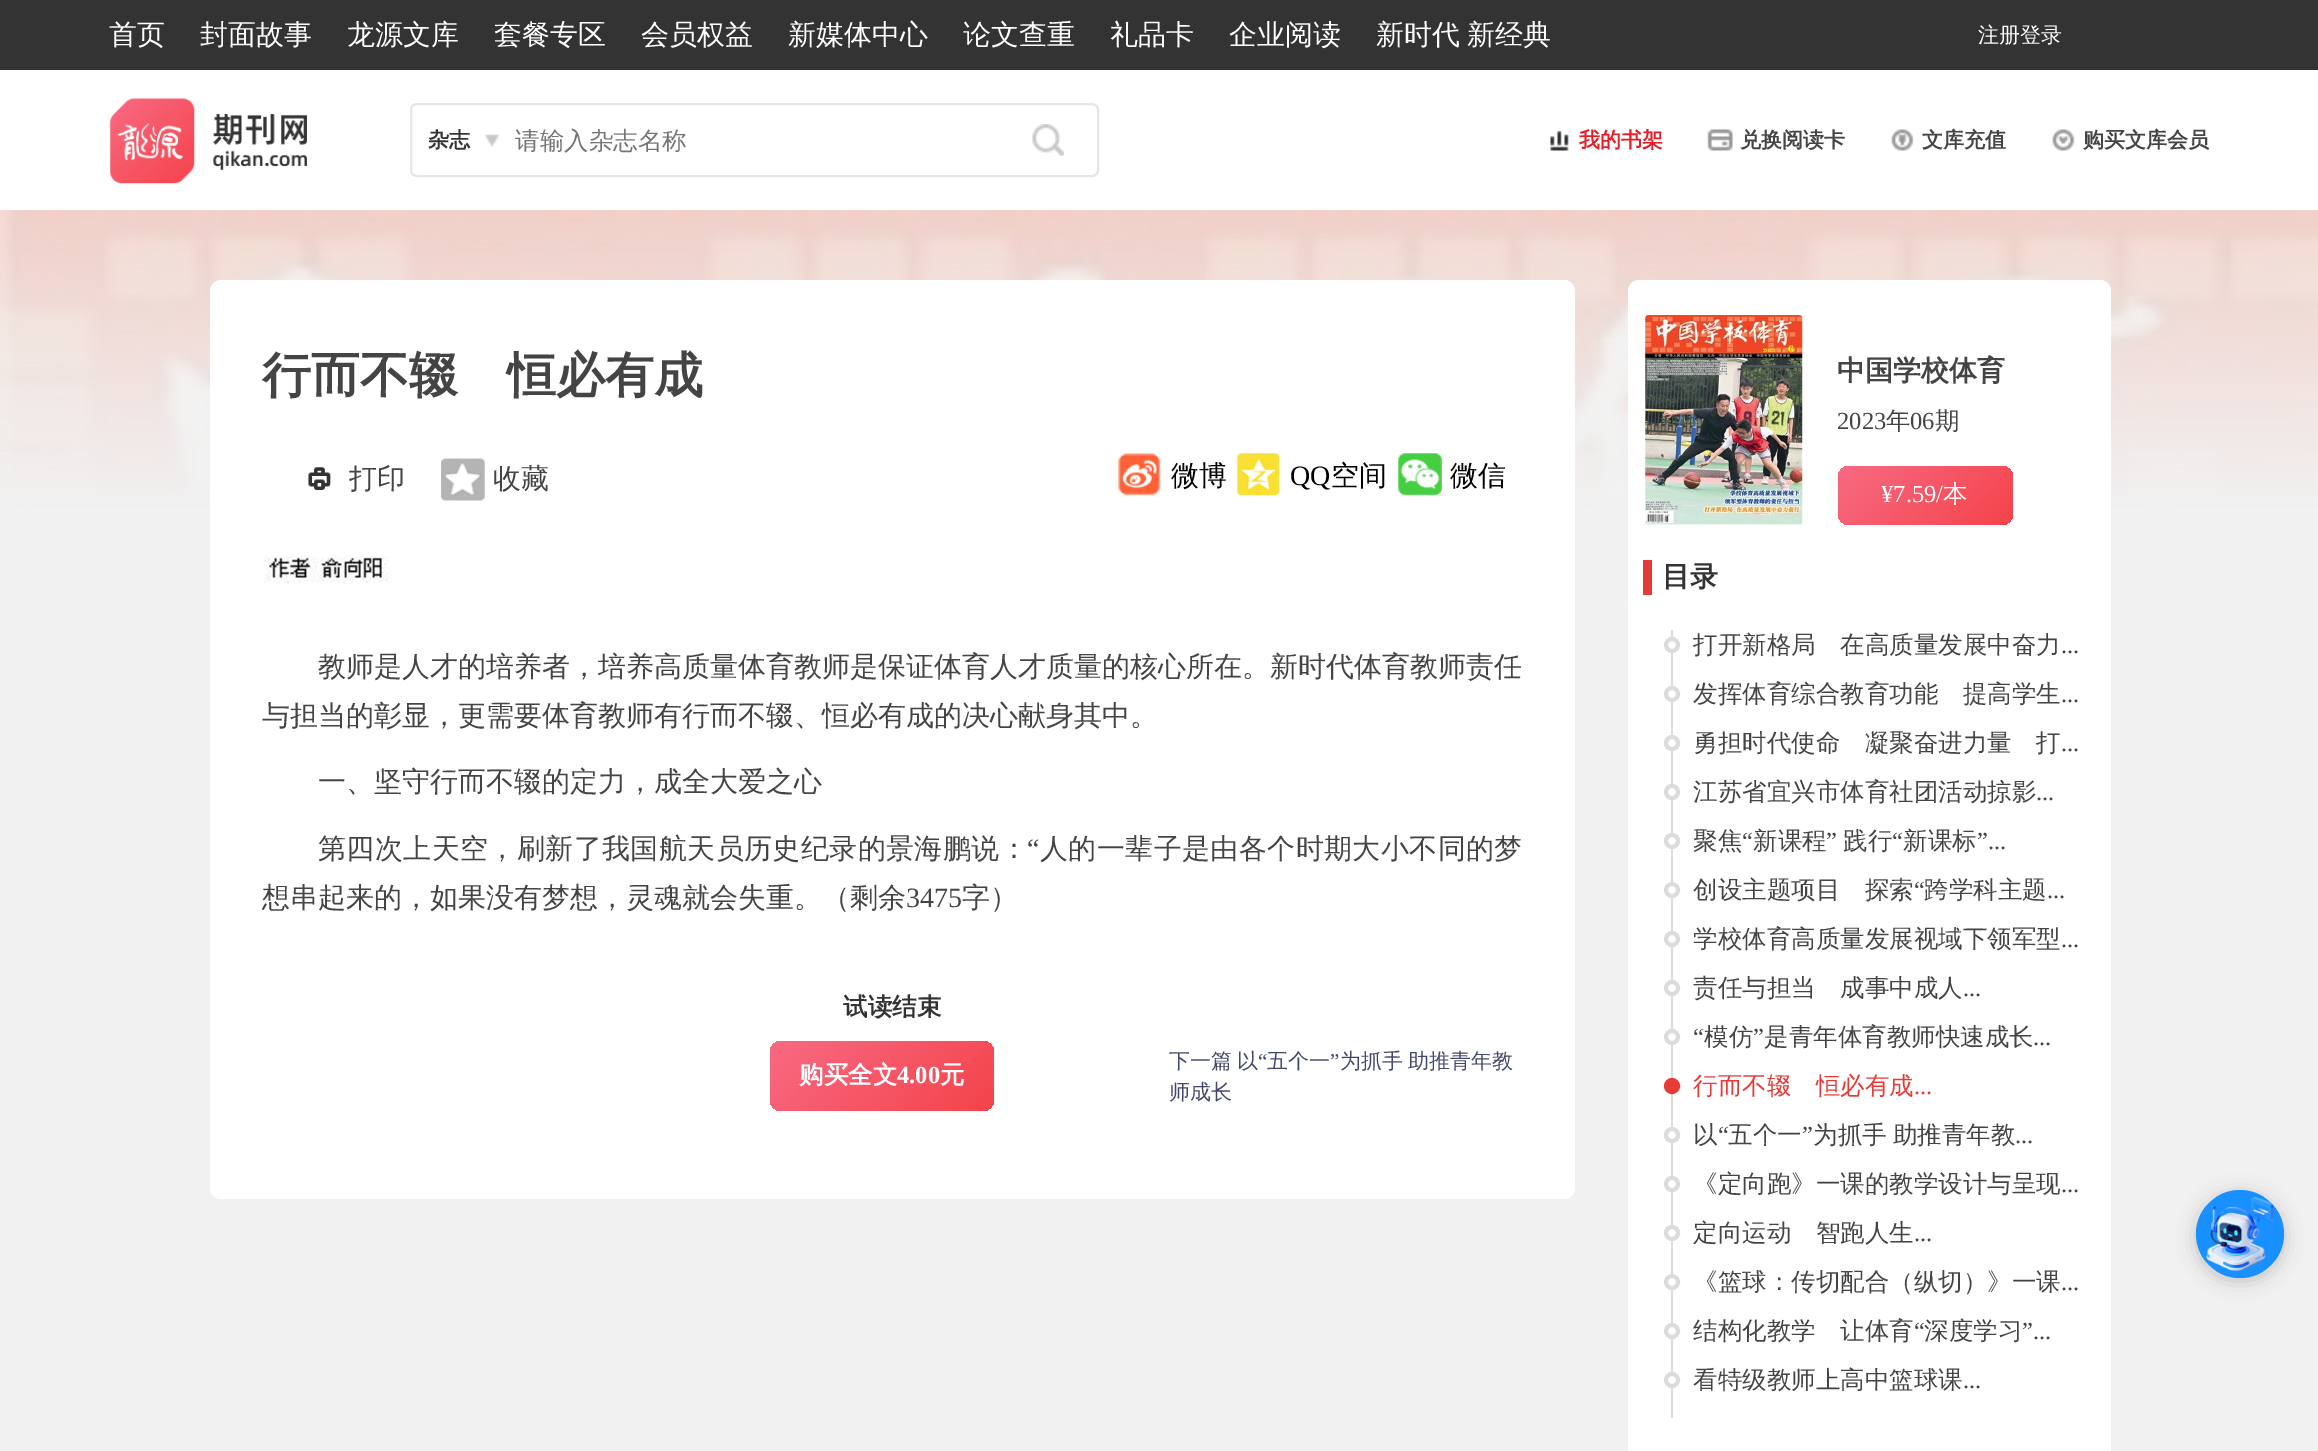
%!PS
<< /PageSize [2318 1451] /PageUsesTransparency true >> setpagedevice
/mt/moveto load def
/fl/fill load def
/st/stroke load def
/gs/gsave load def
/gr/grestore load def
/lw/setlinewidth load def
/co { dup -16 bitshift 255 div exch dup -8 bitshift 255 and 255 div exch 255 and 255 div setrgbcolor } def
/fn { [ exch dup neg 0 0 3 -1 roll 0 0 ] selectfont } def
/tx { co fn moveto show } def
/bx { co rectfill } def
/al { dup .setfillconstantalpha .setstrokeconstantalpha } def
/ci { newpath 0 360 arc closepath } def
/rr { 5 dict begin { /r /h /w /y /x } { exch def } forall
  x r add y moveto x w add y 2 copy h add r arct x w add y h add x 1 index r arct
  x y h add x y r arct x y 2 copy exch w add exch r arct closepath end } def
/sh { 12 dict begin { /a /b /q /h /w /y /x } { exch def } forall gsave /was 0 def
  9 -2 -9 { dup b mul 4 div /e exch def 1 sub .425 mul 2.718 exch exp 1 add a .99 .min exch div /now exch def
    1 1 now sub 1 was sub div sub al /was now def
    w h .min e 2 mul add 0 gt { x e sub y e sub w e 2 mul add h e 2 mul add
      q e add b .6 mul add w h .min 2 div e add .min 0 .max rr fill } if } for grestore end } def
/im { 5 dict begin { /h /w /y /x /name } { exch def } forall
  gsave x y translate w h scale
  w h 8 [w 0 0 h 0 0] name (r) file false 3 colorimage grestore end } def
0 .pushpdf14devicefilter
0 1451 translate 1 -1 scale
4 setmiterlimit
0 0 2318 1451 16#FFFFFF bx
0 0 2318 70 16#333333 bx
(media/1.raw) 110 98 197 86 im
16#E6E6E6 co
2 lw
411 104 687 72 6 rr st
(media/2.raw) 484 134 15 13 im
(media/3.raw) 1032 124 32 32 im
(media/4.raw) 1550 130 19 21 im
(media/5.raw) 1707 129 26 22 im
(media/6.raw) 1891 129 23 22 im
(media/7.raw) 2052 129 23 22 im
(media/8.raw) 0 210 2318 1241 im
16#FFFFFF co
210 280 1365 919 11 rr fl
(media/9.raw) 308 467 23 23 im
(media/10.raw) 441 458 44 43 im
(media/11.raw) 1118 453 43 43 im
(media/12.raw) 1237 453 43 43 im
(media/13.raw) 1398 453 44 43 im
(media/14.raw) 263 556 126 27 im
gs 770 1041 224 70 11 rr clip newpath
<< /ShadingType 2 /ColorSpace /DeviceRGB /Coords [809 1003 956 1150] /Extend [true true] /Function << /FunctionType 2 /Domain [0 1] /C0 [.973 .416 .514] /C1 [.957 .263 .29] /N 1 >> >> shfill gr
1628 280 483 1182 11 rr fl
(media/15.raw) 1645 315 158 210 im
gs 1838 466 175 59 11 rr clip newpath
<< /ShadingType 2 /ColorSpace /DeviceRGB /Coords [1866 437 1984 554] /Extend [true true] /Function << /FunctionType 2 /Domain [0 1] /C0 [.973 .416 .514] /C1 [.957 .263 .29] /N 1 >> >> shfill gr
1643 560 9 35 16#E63B36 bx
1671 630 2 788 16#DCDCDC bx
16#FFFFFF co
1672 645 6 ci gs fl gr
16#DCDCDC co
4 lw
st
16#FFFFFF co
1672 694 6 ci gs fl gr
16#DCDCDC co
st
16#FFFFFF co
1672 743 6 ci gs fl gr
16#DCDCDC co
st
16#FFFFFF co
1672 792 6 ci gs fl gr
16#DCDCDC co
st
16#FFFFFF co
1672 841 6 ci gs fl gr
16#DCDCDC co
st
16#FFFFFF co
1672 890 6 ci gs fl gr
16#DCDCDC co
st
16#FFFFFF co
1672 939 6 ci gs fl gr
16#DCDCDC co
st
16#FFFFFF co
1672 988 6 ci gs fl gr
16#DCDCDC co
st
16#FFFFFF co
1672 1037 6 ci gs fl gr
16#DCDCDC co
st
16#E63B36 co
1672 1086 6 ci gs fl gr
st
16#FFFFFF co
1672 1135 6 ci gs fl gr
16#DCDCDC co
st
16#FFFFFF co
1672 1184 6 ci gs fl gr
16#DCDCDC co
st
16#FFFFFF co
1672 1233 6 ci gs fl gr
16#DCDCDC co
st
16#FFFFFF co
1672 1282 6 ci gs fl gr
16#DCDCDC co
st
16#FFFFFF co
1672 1331 6 ci gs fl gr
16#DCDCDC co
st
16#FFFFFF co
1672 1380 6 ci gs fl gr
16#DCDCDC co
st
16#000000 co
2196 1194 88 87 43.5 9 .2 sh
16#1890FF co
2240 1234 44 ci fl
(media/16.raw) 2206 1197 69 74 im
(首页) 109 44 /WenQuanYiZenHei-Medium 28 16#FFFFFF tx
(封面故事) 200 44 /WenQuanYiZenHei-Medium 28 16#FFFFFF tx
(龙源文库) 347 44 /WenQuanYiZenHei-Medium 28 16#FFFFFF tx
(套餐专区) 494 44 /WenQuanYiZenHei-Medium 28 16#FFFFFF tx
(会员权益) 641 44 /WenQuanYiZenHei-Medium 28 16#FFFFFF tx
(新媒体中心) 788 44 /WenQuanYiZenHei-Medium 28 16#FFFFFF tx
(论文查重) 963 44 /WenQuanYiZenHei-Medium 28 16#FFFFFF tx
(礼品卡) 1110 44 /WenQuanYiZenHei-Medium 28 16#FFFFFF tx
(企业阅读) 1229 44 /WenQuanYiZenHei-Medium 28 16#FFFFFF tx
1376 44 mt -1 0 32 (新时代 新经典) widthshow
(注册登录) 1978 42 /WenQuanYiZenHei-Medium 21 16#FFFFFF tx
(杂志) 428 147 /WenQuanYiZenHei-Bold 21 16#333333 tx
(请输入杂志名称) 515 149 /WenQuanYiZenHei-Medium 24.5 16#757575 tx
(我的书架) 1579 147 /WenQuanYiZenHei-Bold 21 16#E91D25 tx
(兑换阅读卡) 1740 147 /WenQuanYiZenHei-Bold 21 16#444444 tx
(文库充值) 1922 147 /WenQuanYiZenHei-Bold 21 16#444444 tx
(购买文库会员) 2083 147 /WenQuanYiZenHei-Bold 21 16#444444 tx
(行而不辍　恒必有成) 262 392 /WenQuanYiZenHei-Bold 49 16#444444 tx
(打印) 349 488 /WenQuanYiZenHei-Medium 28 16#444444 tx
(收藏) 493 488 /WenQuanYiZenHei-Medium 28 16#444444 tx
(微博) 1171 485 /WenQuanYiZenHei-Medium 28 16#000000 tx
(QQ) 1290 485 /LiberationSerif-Regular 28 16#000000 tx
(空间) 1331 485 /WenQuanYiZenHei-Medium 28 16#000000 tx
(微信) 1450 485 /WenQuanYiZenHei-Medium 28 16#000000 tx
(教师是人才的培养者，培养高质量体育教师是保证体育人才质量的核心所在。新时代体育教师责任) 318 676 /WenQuanYiZenHei-Medium 28 16#444444 tx
(与担当的彰显，更需要体育教师有行而不辍、恒必有成的决心献身其中。) 262 725 /WenQuanYiZenHei-Medium 28 16#444444 tx
(一、坚守行而不辍的定力，成全大爱之心) 318 791 /WenQuanYiZenHei-Medium 28 16#444444 tx
318 858 mt .4 0 (第四次上天空，刷新了我国航天员历史纪录的景海鹏说：) ashow
/LiberationSerif-Regular 28 fn
1027 858 mt .4 0 (“) ashow
/WenQuanYiZenHei-Medium 28 fn
1040 858 mt .4 0 (人的一辈子是由各个时期大小不同的梦) ashow
(想串起来的，如果没有梦想，灵魂就会失重。（剩余) 262 907 /WenQuanYiZenHei-Medium 28 16#444444 tx
(3475) 906 907 /LiberationSerif-Regular 28 16#444444 tx
(字）) 962 907 /WenQuanYiZenHei-Medium 28 16#444444 tx
(试读结束) 843 1015 /WenQuanYiZenHei-Bold 24.5 16#333333 tx
(购买全文) 799 1083 /WenQuanYiZenHei-Bold 24.5 16#FFFFFF tx
(4.00) 897 1083 /LiberationSerif-Bold 24.5 16#FFFFFF tx
(元) 940 1083 /WenQuanYiZenHei-Bold 24.5 16#FFFFFF tx
/WenQuanYiZenHei-Medium 21 fn
16#42476C co
1169 1068 mt -1 0 32 (下一篇 以) widthshow
(“) 1258 1068 /LiberationSerif-Regular 21 16#42476C tx
(五个一) 1267 1068 /WenQuanYiZenHei-Medium 21 16#42476C tx
(”) 1330 1068 /LiberationSerif-Regular 21 16#42476C tx
/WenQuanYiZenHei-Medium 21 fn
1340 1068 mt -1 0 32 (为抓手 助推青年教) widthshow
(师成长) 1169 1099 /WenQuanYiZenHei-Medium 21 16#42476C tx
(中国学校体育) 1837 380 /WenQuanYiZenHei-Bold 28 16#444444 tx
(2023) 1837 429 /LiberationSerif-Regular 24.5 16#444444 tx
(年) 1886 429 /WenQuanYiZenHei-Medium 24.5 16#444444 tx
(06) 1910 429 /LiberationSerif-Regular 24.5 16#444444 tx
(期) 1935 429 /WenQuanYiZenHei-Medium 24.5 16#444444 tx
(¥7.59/) 1881 502 /LiberationSerif-Regular 24.5 16#FFFFFF tx
(本) 1943 502 /WenQuanYiZenHei-Medium 24.5 16#FFFFFF tx
(目录) 1662 586 /WenQuanYiZenHei-Bold 28 16#333333 tx
(打开新格局　在高质量发展中奋力) 1693 653 /WenQuanYiZenHei-Medium 24.5 16#444444 tx
(...) 2061 653 /LiberationSerif-Regular 24.5 16#444444 tx
(发挥体育综合教育功能　提高学生) 1693 702 /WenQuanYiZenHei-Medium 24.5 16#444444 tx
(...) 2061 702 /LiberationSerif-Regular 24.5 16#444444 tx
(勇担时代使命　凝聚奋进力量　打) 1693 751 /WenQuanYiZenHei-Medium 24.5 16#444444 tx
(...) 2061 751 /LiberationSerif-Regular 24.5 16#444444 tx
(江苏省宜兴市体育社团活动掠影) 1693 800 /WenQuanYiZenHei-Medium 24.5 16#444444 tx
(...) 2036 800 /LiberationSerif-Regular 24.5 16#444444 tx
(聚焦) 1693 849 /WenQuanYiZenHei-Medium 24.5 16#444444 tx
(“) 1742 849 /LiberationSerif-Regular 24.5 16#444444 tx
(新课程) 1753 849 /WenQuanYiZenHei-Medium 24.5 16#444444 tx
(”) 1826 849 /LiberationSerif-Regular 24.5 16#444444 tx
(践行) 1843 849 /WenQuanYiZenHei-Medium 24.5 16#444444 tx
(“) 1892 849 /LiberationSerif-Regular 24.5 16#444444 tx
(新课标) 1903 849 /WenQuanYiZenHei-Medium 24.5 16#444444 tx
(”...) 1977 849 /LiberationSerif-Regular 24.5 16#444444 tx
(创设主题项目　探索) 1693 898 /WenQuanYiZenHei-Medium 24.5 16#444444 tx
(“) 1914 898 /LiberationSerif-Regular 24.5 16#444444 tx
(跨学科主题) 1924 898 /WenQuanYiZenHei-Medium 24.5 16#444444 tx
(...) 2047 898 /LiberationSerif-Regular 24.5 16#444444 tx
(学校体育高质量发展视域下领军型) 1693 947 /WenQuanYiZenHei-Medium 24.5 16#444444 tx
(...) 2061 947 /LiberationSerif-Regular 24.5 16#444444 tx
(责任与担当　成事中成人) 1693 996 /WenQuanYiZenHei-Medium 24.5 16#444444 tx
(...) 1963 996 /LiberationSerif-Regular 24.5 16#444444 tx
(“) 1693 1045 /LiberationSerif-Regular 24.5 16#444444 tx
(模仿) 1704 1045 /WenQuanYiZenHei-Medium 24.5 16#444444 tx
(”) 1753 1045 /LiberationSerif-Regular 24.5 16#444444 tx
(是青年体育教师快速成长) 1764 1045 /WenQuanYiZenHei-Medium 24.5 16#444444 tx
(...) 2033 1045 /LiberationSerif-Regular 24.5 16#444444 tx
(行而不辍　恒必有成) 1693 1094 /WenQuanYiZenHei-Medium 24.5 16#E63B36 tx
(...) 1914 1094 /LiberationSerif-Regular 24.5 16#E63B36 tx
(以) 1693 1143 /WenQuanYiZenHei-Medium 24.5 16#444444 tx
(“) 1718 1143 /LiberationSerif-Regular 24.5 16#444444 tx
(五个一) 1728 1143 /WenQuanYiZenHei-Medium 24.5 16#444444 tx
(”) 1802 1143 /LiberationSerif-Regular 24.5 16#444444 tx
/WenQuanYiZenHei-Medium 24.5 fn
1813 1143 mt -1 0 32 (为抓手 助推青年教) widthshow
(...) 2015 1143 /LiberationSerif-Regular 24.5 16#444444 tx
(《定向跑》一课的教学设计与呈现) 1693 1192 /WenQuanYiZenHei-Medium 24.5 16#444444 tx
(...) 2061 1192 /LiberationSerif-Regular 24.5 16#444444 tx
(定向运动　智跑人生) 1693 1241 /WenQuanYiZenHei-Medium 24.5 16#444444 tx
(...) 1914 1241 /LiberationSerif-Regular 24.5 16#444444 tx
(《篮球：传切配合（纵切）》一课) 1693 1290 /WenQuanYiZenHei-Medium 24.5 16#444444 tx
(...) 2061 1290 /LiberationSerif-Regular 24.5 16#444444 tx
(结构化教学　让体育) 1693 1339 /WenQuanYiZenHei-Medium 24.5 16#444444 tx
(“) 1914 1339 /LiberationSerif-Regular 24.5 16#444444 tx
(深度学习) 1924 1339 /WenQuanYiZenHei-Medium 24.5 16#444444 tx
(”...) 2022 1339 /LiberationSerif-Regular 24.5 16#444444 tx
(看特级教师上高中篮球课) 1693 1388 /WenQuanYiZenHei-Medium 24.5 16#444444 tx
(...) 1963 1388 /LiberationSerif-Regular 24.5 16#444444 tx
.poppdf14devicefilter showpage
